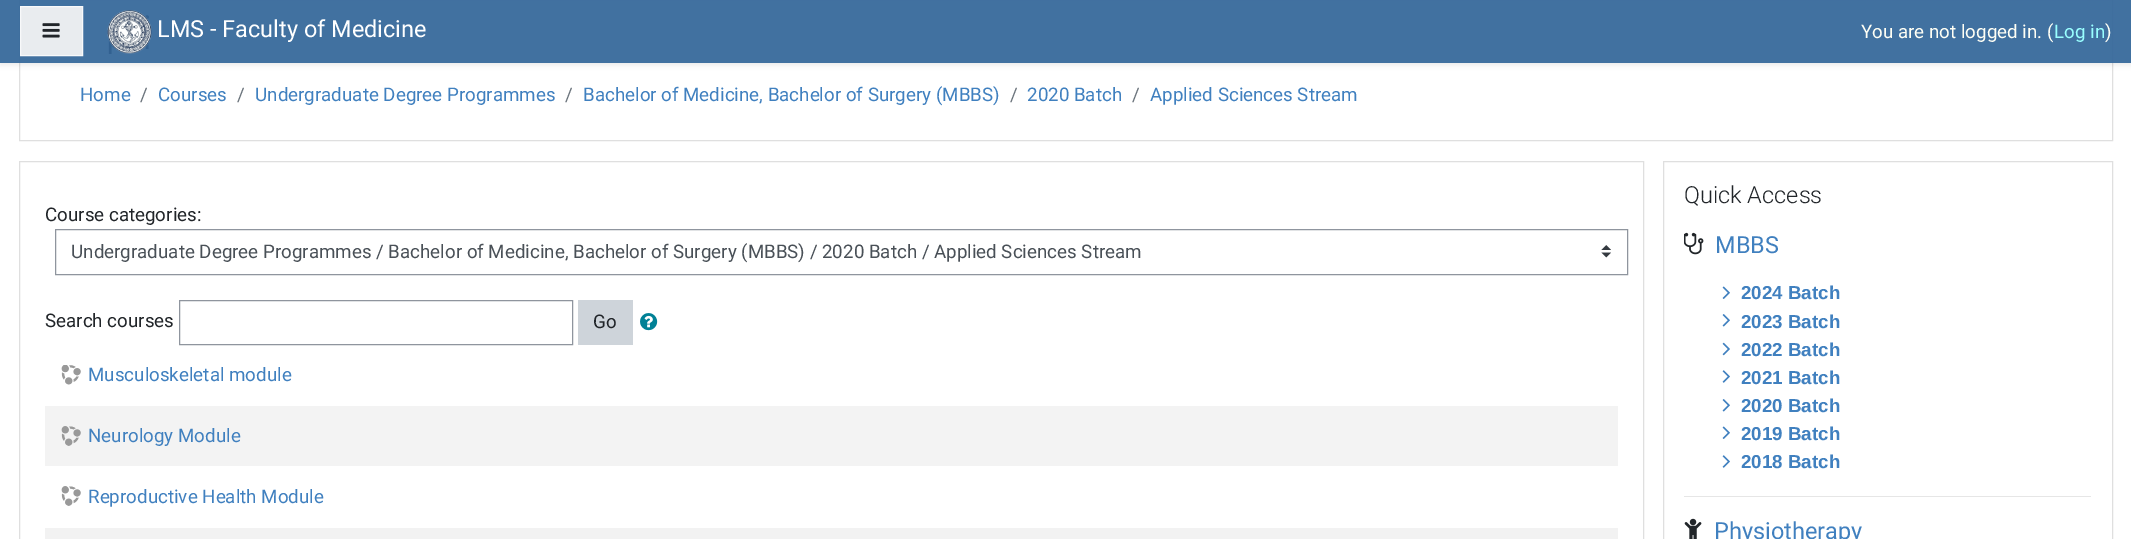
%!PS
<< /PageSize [2131 539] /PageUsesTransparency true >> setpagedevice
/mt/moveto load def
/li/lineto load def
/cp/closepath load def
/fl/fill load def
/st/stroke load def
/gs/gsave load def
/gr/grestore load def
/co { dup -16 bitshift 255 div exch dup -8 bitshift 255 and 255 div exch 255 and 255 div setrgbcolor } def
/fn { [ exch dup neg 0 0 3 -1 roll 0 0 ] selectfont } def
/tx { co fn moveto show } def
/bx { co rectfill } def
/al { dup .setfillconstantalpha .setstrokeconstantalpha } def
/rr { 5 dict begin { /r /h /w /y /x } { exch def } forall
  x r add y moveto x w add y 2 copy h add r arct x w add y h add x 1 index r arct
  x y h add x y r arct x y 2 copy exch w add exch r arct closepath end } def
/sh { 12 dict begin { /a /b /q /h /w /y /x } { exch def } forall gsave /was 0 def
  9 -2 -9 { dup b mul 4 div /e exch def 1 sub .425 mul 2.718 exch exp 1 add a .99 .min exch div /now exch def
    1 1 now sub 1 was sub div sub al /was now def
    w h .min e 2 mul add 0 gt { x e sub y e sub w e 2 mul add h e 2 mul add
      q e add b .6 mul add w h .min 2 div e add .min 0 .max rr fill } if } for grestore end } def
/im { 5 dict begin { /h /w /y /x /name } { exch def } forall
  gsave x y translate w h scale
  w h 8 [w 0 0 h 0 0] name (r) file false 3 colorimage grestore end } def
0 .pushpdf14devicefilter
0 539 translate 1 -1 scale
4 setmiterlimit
0 0 2131 539 16#FFFFFF bx
16#DFDFDF co
19.5 -.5 2093 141 rectstroke
gs
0 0 mt 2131 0 li 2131 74 li 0 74 li cp 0 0 mt 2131 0 li 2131 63 li 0 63 li cp eoclip newpath
16#000000 co
0 3 2131 62 0 2.5 .08 sh
gr
0.93 al
0 0 2131 63 16#336699 bx
1 al
16#E9ECEF co
20.5 6.5 mt 82.5 6.5 li 82.5 55.5 li 20.5 55.5 li cp gs fl gr
16#F8F9FA co
st
(media/1.raw) 42 23 18 15 im
(media/2.raw) 107 10 45 44 im
16#DFDFDF co
19.5 161.5 1624 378 rectstroke
(media/3.raw) 1601 245 10 13 im
16#8F959E co
55.5 229.5 1572 45 rectstroke
179.5 300.5 393 44 rectstroke
578 300 55 45 16#CED4DA bx
(media/4.raw) 640 313 18 18 im
(media/5.raw) 61 365 20 20 im
45 406 1573 60 16#F3F3F3 bx
(media/6.raw) 61 426 20 20 im
(media/7.raw) 61 486 20 20 im
45 528 1573 11 16#F2F2F2 bx
16#DFDFDF co
1663.5 161.5 449 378 rectstroke
(media/8.raw) 1684 232 20 23 im
(media/9.raw) 1722 286 8 13 im
(media/10.raw) 1722 314 8 13 im
(media/11.raw) 1722 342 8 14 im
(media/12.raw) 1722 370 8 13 im
(media/10.raw) 1722 399 8 13 im
(media/9.raw) 1722 426 8 13 im
(media/12.raw) 1722 455 8 13 im
1684 496 407 1 16#E6E6E6 bx
(media/13.raw) 1684 518 18 21 im
(LMS - Faculty of Medicine) 157 37 /Roboto-Regular 23.5 16#FFFFFF tx
(You are not logged in. \() 1861 38 /Roboto-Regular 18.75 16#FFFFF5 tx
(Log in) 2054 38 /Roboto-Regular 18.75 16#99FFFF tx
(\)) 2105 38 /Roboto-Regular 18.75 16#FFFFF5 tx
(Home) 80 101 /Roboto-Regular 18.75 16#4080BF tx
(/) 140 101 /Roboto-Regular 18.75 16#6C757D tx
(Courses) 158 101 /Roboto-Regular 18.75 16#4080BF tx
(/) 237 101 /Roboto-Regular 18.75 16#6C757D tx
(Undergraduate Degree Programmes) 255 101 /Roboto-Regular 18.75 16#4080BF tx
(/) 565 101 /Roboto-Regular 18.75 16#6C757D tx
(Bachelor of Medicine, Bachelor of Surgery \(MBBS\)) 583 101 /Roboto-Regular 18.75 16#4080BF tx
(/) 1010 101 /Roboto-Regular 18.75 16#6C757D tx
(2020 Batch) 1027 101 /Roboto-Regular 18.75 16#4080BF tx
(/) 1132 101 /Roboto-Regular 18.75 16#6C757D tx
(Applied Sciences Stream) 1150 101 /Roboto-Regular 18.75 16#4080BF tx
(Course categories:) 45 221 /Roboto-Regular 18.75 16#212529 tx
(Undergraduate Degree Programmes / Bachelor of Medicine, Bachelor of Surgery \(MBBS\) / 2020 Batch / Applied Sciences Stream) 71 258 /Roboto-Regular 18.75 16#495057 tx
(Search courses) 45 327 /Roboto-Regular 18.75 16#212529 tx
(Go) 593 328 /Roboto-Regular 18.75 16#212529 tx
(Musculoskeletal module) 88 381 /Roboto-Regular 18.75 16#4080BF tx
(Neurology Module) 88 442 /Roboto-Regular 18.75 16#4080BF tx
(Reproductive Health Module) 88 503 /Roboto-Regular 18.75 16#4080BF tx
(Quick Access) 1684 203 /Roboto-Light 23.5 16#212529 tx
(MBBS) 1715 253 /Roboto-Regular 23.5 16#4080BF tx
(2024 Batch) 1741 299 /LiberationSans-Bold 18.75 16#4080BF tx
(2023 Batch) 1741 328 /LiberationSans-Bold 18.75 16#4080BF tx
(2022 Batch) 1741 356 /LiberationSans-Bold 18.75 16#4080BF tx
(2021 Batch) 1741 384 /LiberationSans-Bold 18.75 16#4080BF tx
(2020 Batch) 1741 412 /LiberationSans-Bold 18.75 16#4080BF tx
(2019 Batch) 1741 440 /LiberationSans-Bold 18.75 16#4080BF tx
(2018 Batch) 1741 468 /LiberationSans-Bold 18.75 16#4080BF tx
(Physiotherapy) 1714 539 /Roboto-Regular 23.5 16#4080BF tx
.poppdf14devicefilter showpage
